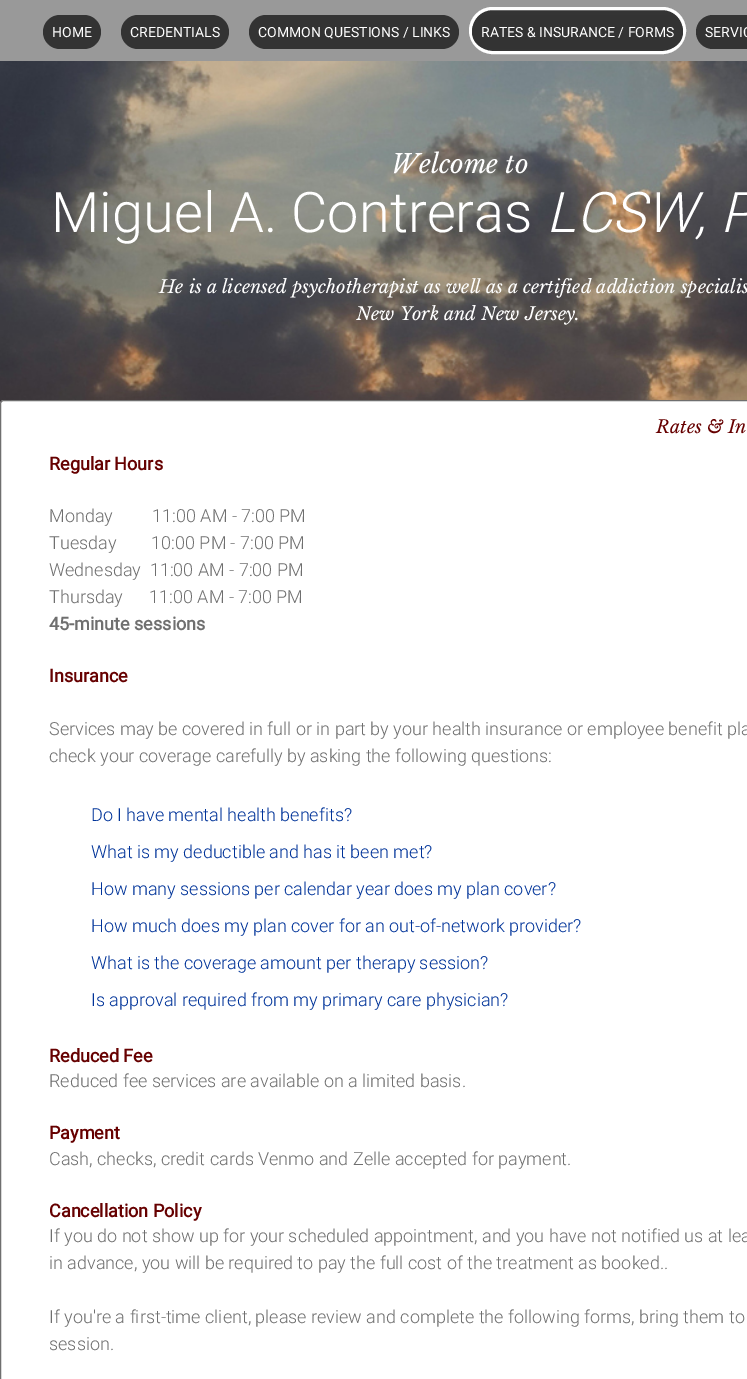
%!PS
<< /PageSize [747 1379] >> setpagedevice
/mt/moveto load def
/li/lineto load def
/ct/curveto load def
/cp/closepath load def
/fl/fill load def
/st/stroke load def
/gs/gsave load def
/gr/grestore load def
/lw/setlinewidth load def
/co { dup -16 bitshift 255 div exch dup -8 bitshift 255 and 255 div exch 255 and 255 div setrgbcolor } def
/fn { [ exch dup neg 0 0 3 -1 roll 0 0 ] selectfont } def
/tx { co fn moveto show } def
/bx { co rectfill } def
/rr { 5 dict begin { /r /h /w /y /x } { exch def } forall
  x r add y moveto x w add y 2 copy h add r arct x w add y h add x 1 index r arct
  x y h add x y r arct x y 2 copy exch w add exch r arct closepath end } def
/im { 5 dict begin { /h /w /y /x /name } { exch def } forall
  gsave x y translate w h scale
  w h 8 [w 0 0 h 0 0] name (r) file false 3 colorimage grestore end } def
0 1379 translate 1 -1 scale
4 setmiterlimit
0 0 747 1379 16#FFFFFF bx
(media/1.raw) 0 61 747 343 im
0 0 747 61 16#999999 bx
16#333333 co
43 15 58 34 17 rr fl
121 15 108 34 17 rr fl
249 15 210 34 17 rr fl
16#343434 co
470.5 8.5 214 44 22 rr gs fl gr
16#FFFFFF co
3 lw
st
16#333333 co
472 15 211 34 17 rr fl
713 15 mt 747 15 li 747 49 li 713 49 li 703.5 49 696 41.5 696 32 ct 696 22.5 703.5 15 713 15 ct cp fl
16#FFFFFF co
4 400 mt 747 400 li 747 1379 li 0 1379 li 0 404 li 0 402 2 400 4 400 ct cp fl
16#6F6F6F co
1 lw
.5 400.5 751 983 3.5 rr st
(HOME) 52 37 /Roboto-Regular 14 16#FFFFFF tx
(CREDENTIALS) 130 37 /Roboto-Regular 14 16#FFFFFF tx
(COMMON QUESTIONS / LINKS) 258 37 /Roboto-Regular 14 16#FFFFFF tx
(RATES & INSURANCE / FORMS) 481 37 /Roboto-Regular 14 16#FFFFFF tx
(SERVIC) 705 37 /Roboto-Regular 14 16#FFFFFF tx
(Welcome to) 391 173 /LibreBaskerville-Italic 26 16#FFFFFF tx
(Miguel A. Contreras) 51 232 /Roboto-Light 56 16#FFFFFF tx
(LCSW, P) 546 232 /Roboto-LightItalic 56 16#FFFFFF tx
(He is a licensed psychotherapist as well as a certified addiction specialis) 159 293 /LibreBaskerville-Italic 18 16#FFFFFF tx
(New York and New Jersey.) 356 320 /LibreBaskerville-Italic 18 16#FFFFFF tx
(Rates & In) 656 433 /LibreBaskerville-Italic 18 16#660000 tx
(Regular Hours) 49 470 /Roboto-Bold 18 16#660000 tx
(Monday         11:00 AM - 7:00 PM) 49 522 /Roboto-Light 18 16#6F6F6F tx
(Tuesday        10:00 PM - 7:00 PM) 49 549 /Roboto-Light 18 16#6F6F6F tx
(Wednesday  11:00 AM - 7:00 PM) 49 576 /Roboto-Light 18 16#6F6F6F tx
(Thursday      11:00 AM - 7:00 PM) 49 603 /Roboto-Light 18 16#6F6F6F tx
(45-minute sessions) 49 630 /Roboto-Bold 18 16#6F6F6F tx
(Insurance) 49 682 /Roboto-Bold 18 16#660000 tx
(Services may be covered in full or in part by your health insurance or employee benefit pla) 49 735 /Roboto-Light 18 16#6F6F6F tx
(check your coverage carefully by asking the following questions:) 49 762 /Roboto-Light 18 16#6F6F6F tx
(Do I have mental health benefits?) 91 821 /Roboto-Light 18 16#003399 tx
(What is my deductible and has it been met?) 91 858 /Roboto-Light 18 16#003399 tx
(How many sessions per calendar year does my plan cover?) 91 895 /Roboto-Light 18 16#003399 tx
(How much does my plan cover for an out-of-network provider?) 91 932 /Roboto-Light 18 16#003399 tx
(What is the coverage amount per therapy session?) 91 969 /Roboto-Light 18 16#003399 tx
(Is approval required from my primary care physician?) 91 1006 /Roboto-Light 18 16#003399 tx
(Reduced Fee) 49 1062 /Roboto-Bold 18 16#660000 tx
(Reduced fee services are available on a limited basis.) 49 1087 /Roboto-Light 18 16#6F6F6F tx
(Payment) 49 1139 /Roboto-Bold 18 16#660000 tx
(Cash, checks, credit cards Venmo and Zelle accepted for payment.) 49 1165 /Roboto-Light 18 16#6F6F6F tx
(Cancellation Policy) 49 1217 /Roboto-Bold 18 16#660000 tx
(If you do not show up for your scheduled appointment, and you have not notified us at lea) 49 1242 /Roboto-Light 18 16#6F6F6F tx
(in advance, you will be required to pay the full cost of the treatment as booked..) 49 1269 /Roboto-Light 18 16#6F6F6F tx
(If you're a first-time client, please review and complete the following forms, bring them to) 49 1323 /Roboto-Light 18 16#6F6F6F tx
(session.) 49 1350 /Roboto-Light 18 16#6F6F6F tx
showpage
